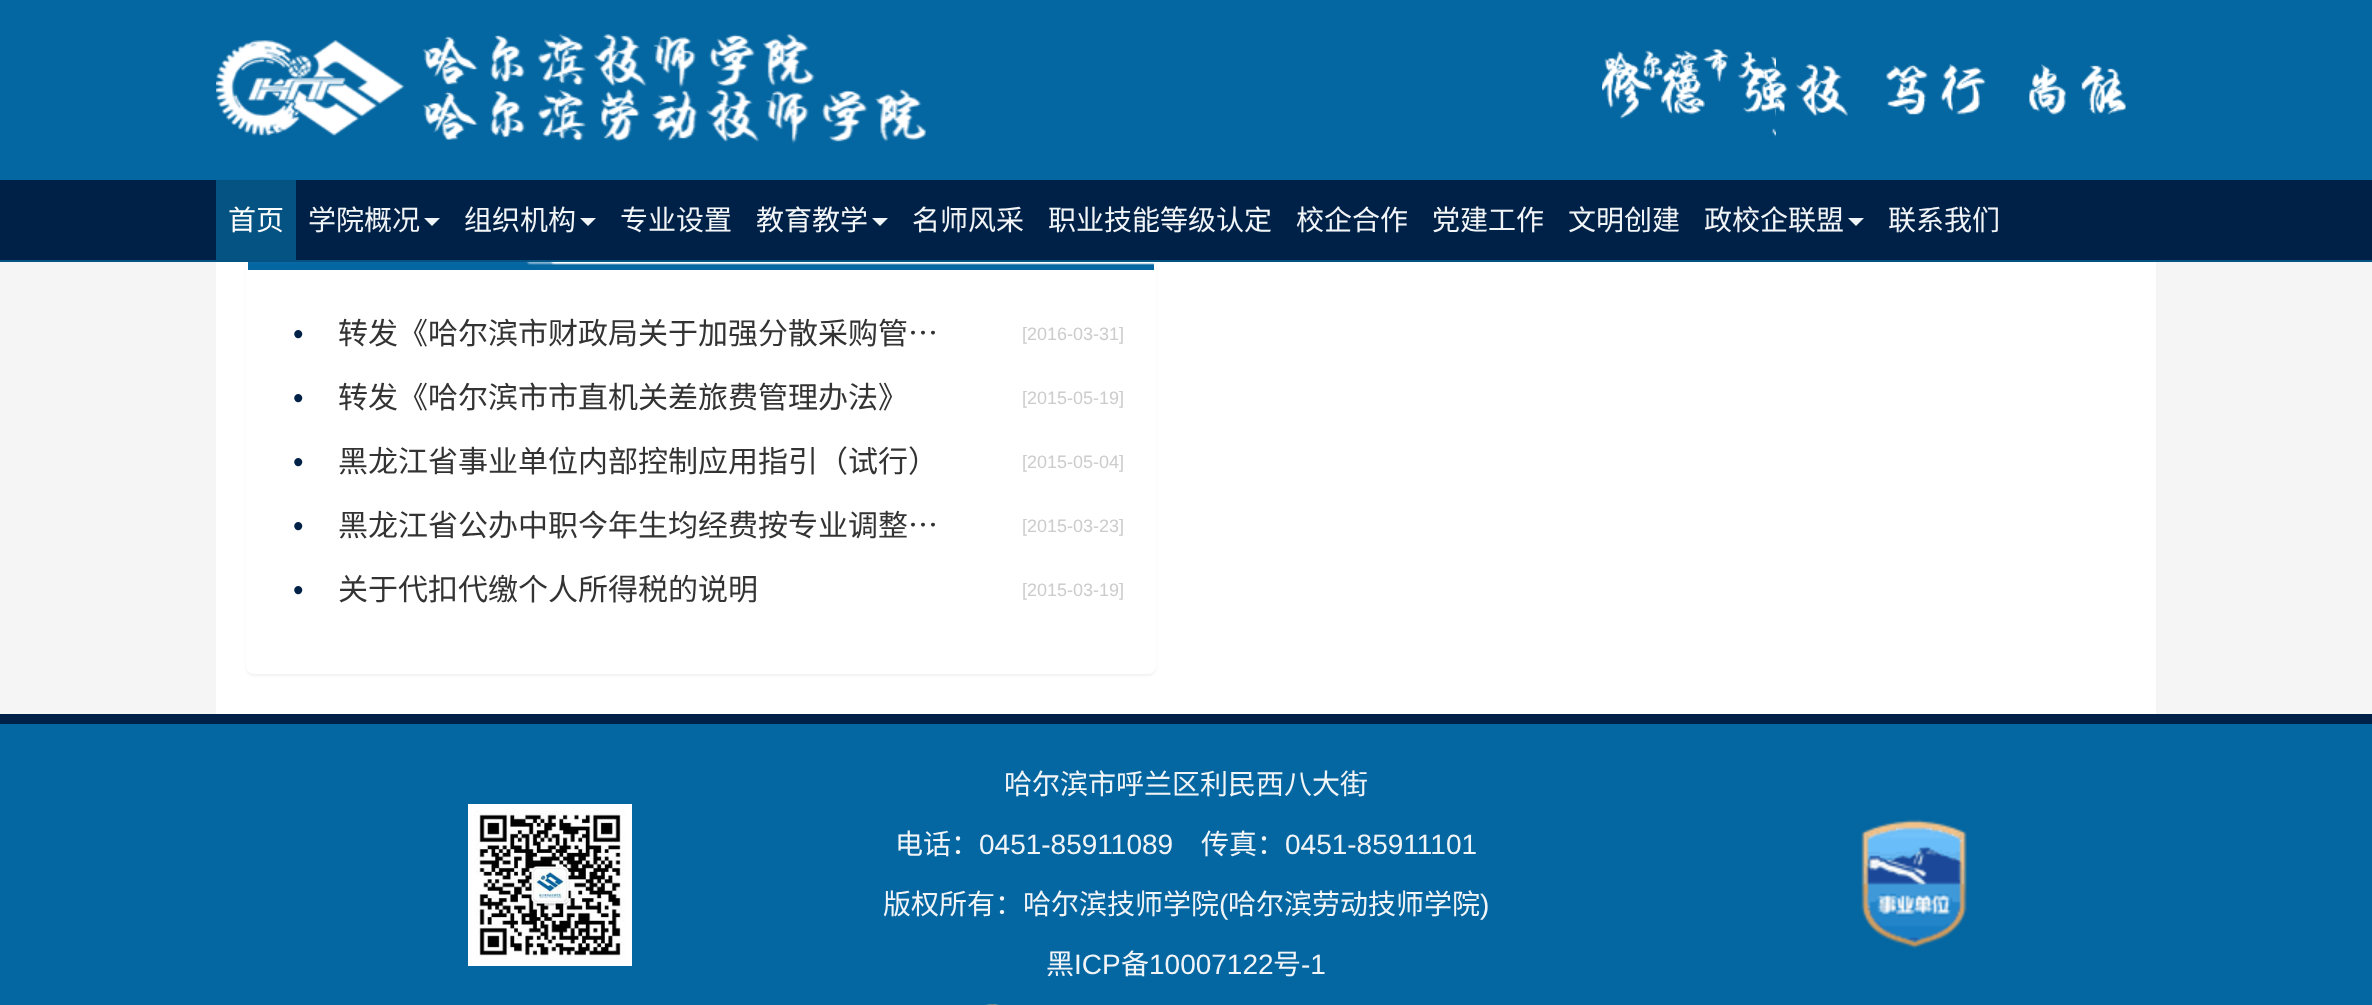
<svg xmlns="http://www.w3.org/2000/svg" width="2372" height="1005">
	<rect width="100%" height="100%" fill="#F5F5F5" />
	<rect x="0" y="0" width="2372" height="180" fill="#0567A2" />
	<rect x="216" y="262" width="1940" height="452" fill="#FFFFFF" />
	<rect x="246" y="200" width="910" height="476" rx="8" fill="#000000" fill-opacity="0.05" filter="blur(1px)" />
	<rect x="246" y="198" width="910" height="476" rx="8" fill="#FFFFFF" />
	<rect x="0" y="260" width="2372" height="2" fill="#045382" />
	<image x="216" y="34" width="710" height="110" href="assets/img1.png" />
	<image x="1604" y="48" width="172" height="89" href="assets/img2.png" />
	<image x="1602" y="62" width="524" height="57" href="assets/img3.png" />
	<rect x="0" y="180" width="2372" height="80" fill="#002147" />
	<rect x="216" y="180" width="80" height="80" fill="#045382" />
	<text x="228" y="230" font-family="Noto Sans CJK SC" font-size="28" fill="#FFFFFF">首页</text>
	<text x="308" y="230" font-family="Noto Sans CJK SC" font-size="28" fill="#F2F5F7">学院概况</text>
	<path d="M424 218H440L432 226Z" fill="#F2F5F7" />
	<text x="464" y="230" font-family="Noto Sans CJK SC" font-size="28" fill="#F2F5F7">组织机构</text>
	<path d="M580 218H596L588 226Z" fill="#F2F5F7" />
	<g font-family="Noto Sans CJK SC" font-size="28" fill="#F2F5F7">
		<text x="620" y="230">专业设置</text>
		<text x="756" y="230">教育教学</text>
	</g>
	<path d="M872 218H888L880 226Z" fill="#F2F5F7" />
	<g font-family="Noto Sans CJK SC" font-size="28" fill="#F2F5F7">
		<text x="912" y="230">名师风采</text>
		<text x="1048" y="230">职业技能等级认定</text>
		<text x="1296" y="230">校企合作</text>
		<text x="1432" y="230">党建工作</text>
		<text x="1568" y="230">文明创建</text>
		<text x="1704" y="230">政校企联盟</text>
	</g>
	<path d="M1848 218H1864L1856 226Z" fill="#F2F5F7" />
	<text x="1888" y="230" font-family="Noto Sans CJK SC" font-size="28" fill="#F2F5F7">联系我们</text>
	<image x="248" y="262" width="906" height="8" href="assets/img4.png" />
	<text x="293" y="344" font-family="Liberation Sans" font-size="30" fill="#002147">•</text>
	<text x="338" y="344" font-family="Noto Sans CJK SC" font-size="30" fill="#333333">转发《哈尔滨市财政局关于加强分散采购管…</text>
	<text x="1022" y="340" font-family="Liberation Sans" font-size="18" fill="#CCCCCC">[2016-03-31]</text>
	<text x="293" y="408" font-family="Liberation Sans" font-size="30" fill="#002147">•</text>
	<text x="338" y="408" font-family="Noto Sans CJK SC" font-size="30" fill="#333333">转发《哈尔滨市市直机关差旅费管理办法》</text>
	<text x="1022" y="404" font-family="Liberation Sans" font-size="18" fill="#CCCCCC">[2015-05-19]</text>
	<text x="293" y="472" font-family="Liberation Sans" font-size="30" fill="#002147">•</text>
	<text x="338" y="472" font-family="Noto Sans CJK SC" font-size="30" fill="#333333">黑龙江省事业单位内部控制应用指引（试行）</text>
	<text x="1022" y="468" font-family="Liberation Sans" font-size="18" fill="#CCCCCC">[2015-05-04]</text>
	<text x="293" y="536" font-family="Liberation Sans" font-size="30" fill="#002147">•</text>
	<text x="338" y="536" font-family="Noto Sans CJK SC" font-size="30" fill="#333333">黑龙江省公办中职今年生均经费按专业调整…</text>
	<text x="1022" y="532" font-family="Liberation Sans" font-size="18" fill="#CCCCCC">[2015-03-23]</text>
	<text x="293" y="600" font-family="Liberation Sans" font-size="30" fill="#002147">•</text>
	<text x="338" y="600" font-family="Noto Sans CJK SC" font-size="30" fill="#333333">关于代扣代缴个人所得税的说明</text>
	<text x="1022" y="596" font-family="Liberation Sans" font-size="18" fill="#CCCCCC">[2015-03-19]</text>
	<rect x="0" y="724" width="2372" height="281" fill="#0567A2" />
	<rect x="0" y="714" width="2372" height="10" fill="#002147" />
	<image x="468" y="804" width="164" height="162" href="assets/img5.png" />
	<g font-family="Noto Sans CJK SC" font-size="28" fill="#F2F5F7">
		<text x="1004" y="794">哈尔滨市呼兰区利民西八大街</text>
		<text x="895" y="854">电话：</text>
	</g>
	<text x="979" y="854" font-family="Liberation Sans" font-size="28" fill="#F2F5F7">0451-85911089</text>
	<text x="1201" y="854" font-family="Noto Sans CJK SC" font-size="28" fill="#F2F5F7">传真：</text>
	<text x="1285" y="854" font-family="Liberation Sans" font-size="28" fill="#F2F5F7">0451-85911101</text>
	<text x="883" y="914" font-family="Noto Sans CJK SC" font-size="28" fill="#F2F5F7">版权所有：哈尔滨技师学院</text>
	<text x="1219" y="914" font-family="Liberation Sans" font-size="28" fill="#F2F5F7">(</text>
	<text x="1228" y="914" font-family="Noto Sans CJK SC" font-size="28" fill="#F2F5F7">哈尔滨劳动技师学院</text>
	<text x="1480" y="914" font-family="Liberation Sans" font-size="28" fill="#F2F5F7">)</text>
	<text x="1046" y="974" font-family="Noto Sans CJK SC" font-size="28" fill="#F2F5F7">黑</text>
	<text x="1074" y="974" font-family="Liberation Sans" font-size="28" fill="#F2F5F7">ICP</text>
	<text x="1121" y="974" font-family="Noto Sans CJK SC" font-size="28" fill="#F2F5F7">备</text>
	<text x="1149" y="974" font-family="Liberation Sans" font-size="28" fill="#F2F5F7">10007122</text>
	<text x="1273" y="974" font-family="Noto Sans CJK SC" font-size="28" fill="#F2F5F7">号</text>
	<text x="1301" y="974" font-family="Liberation Sans" font-size="28" fill="#F2F5F7">-1</text>
	<image x="985" y="1004" width="14" height="1" href="assets/img6.png" />
	<image x="1861" y="819" width="106" height="130" href="assets/img7.png" />
</svg>
